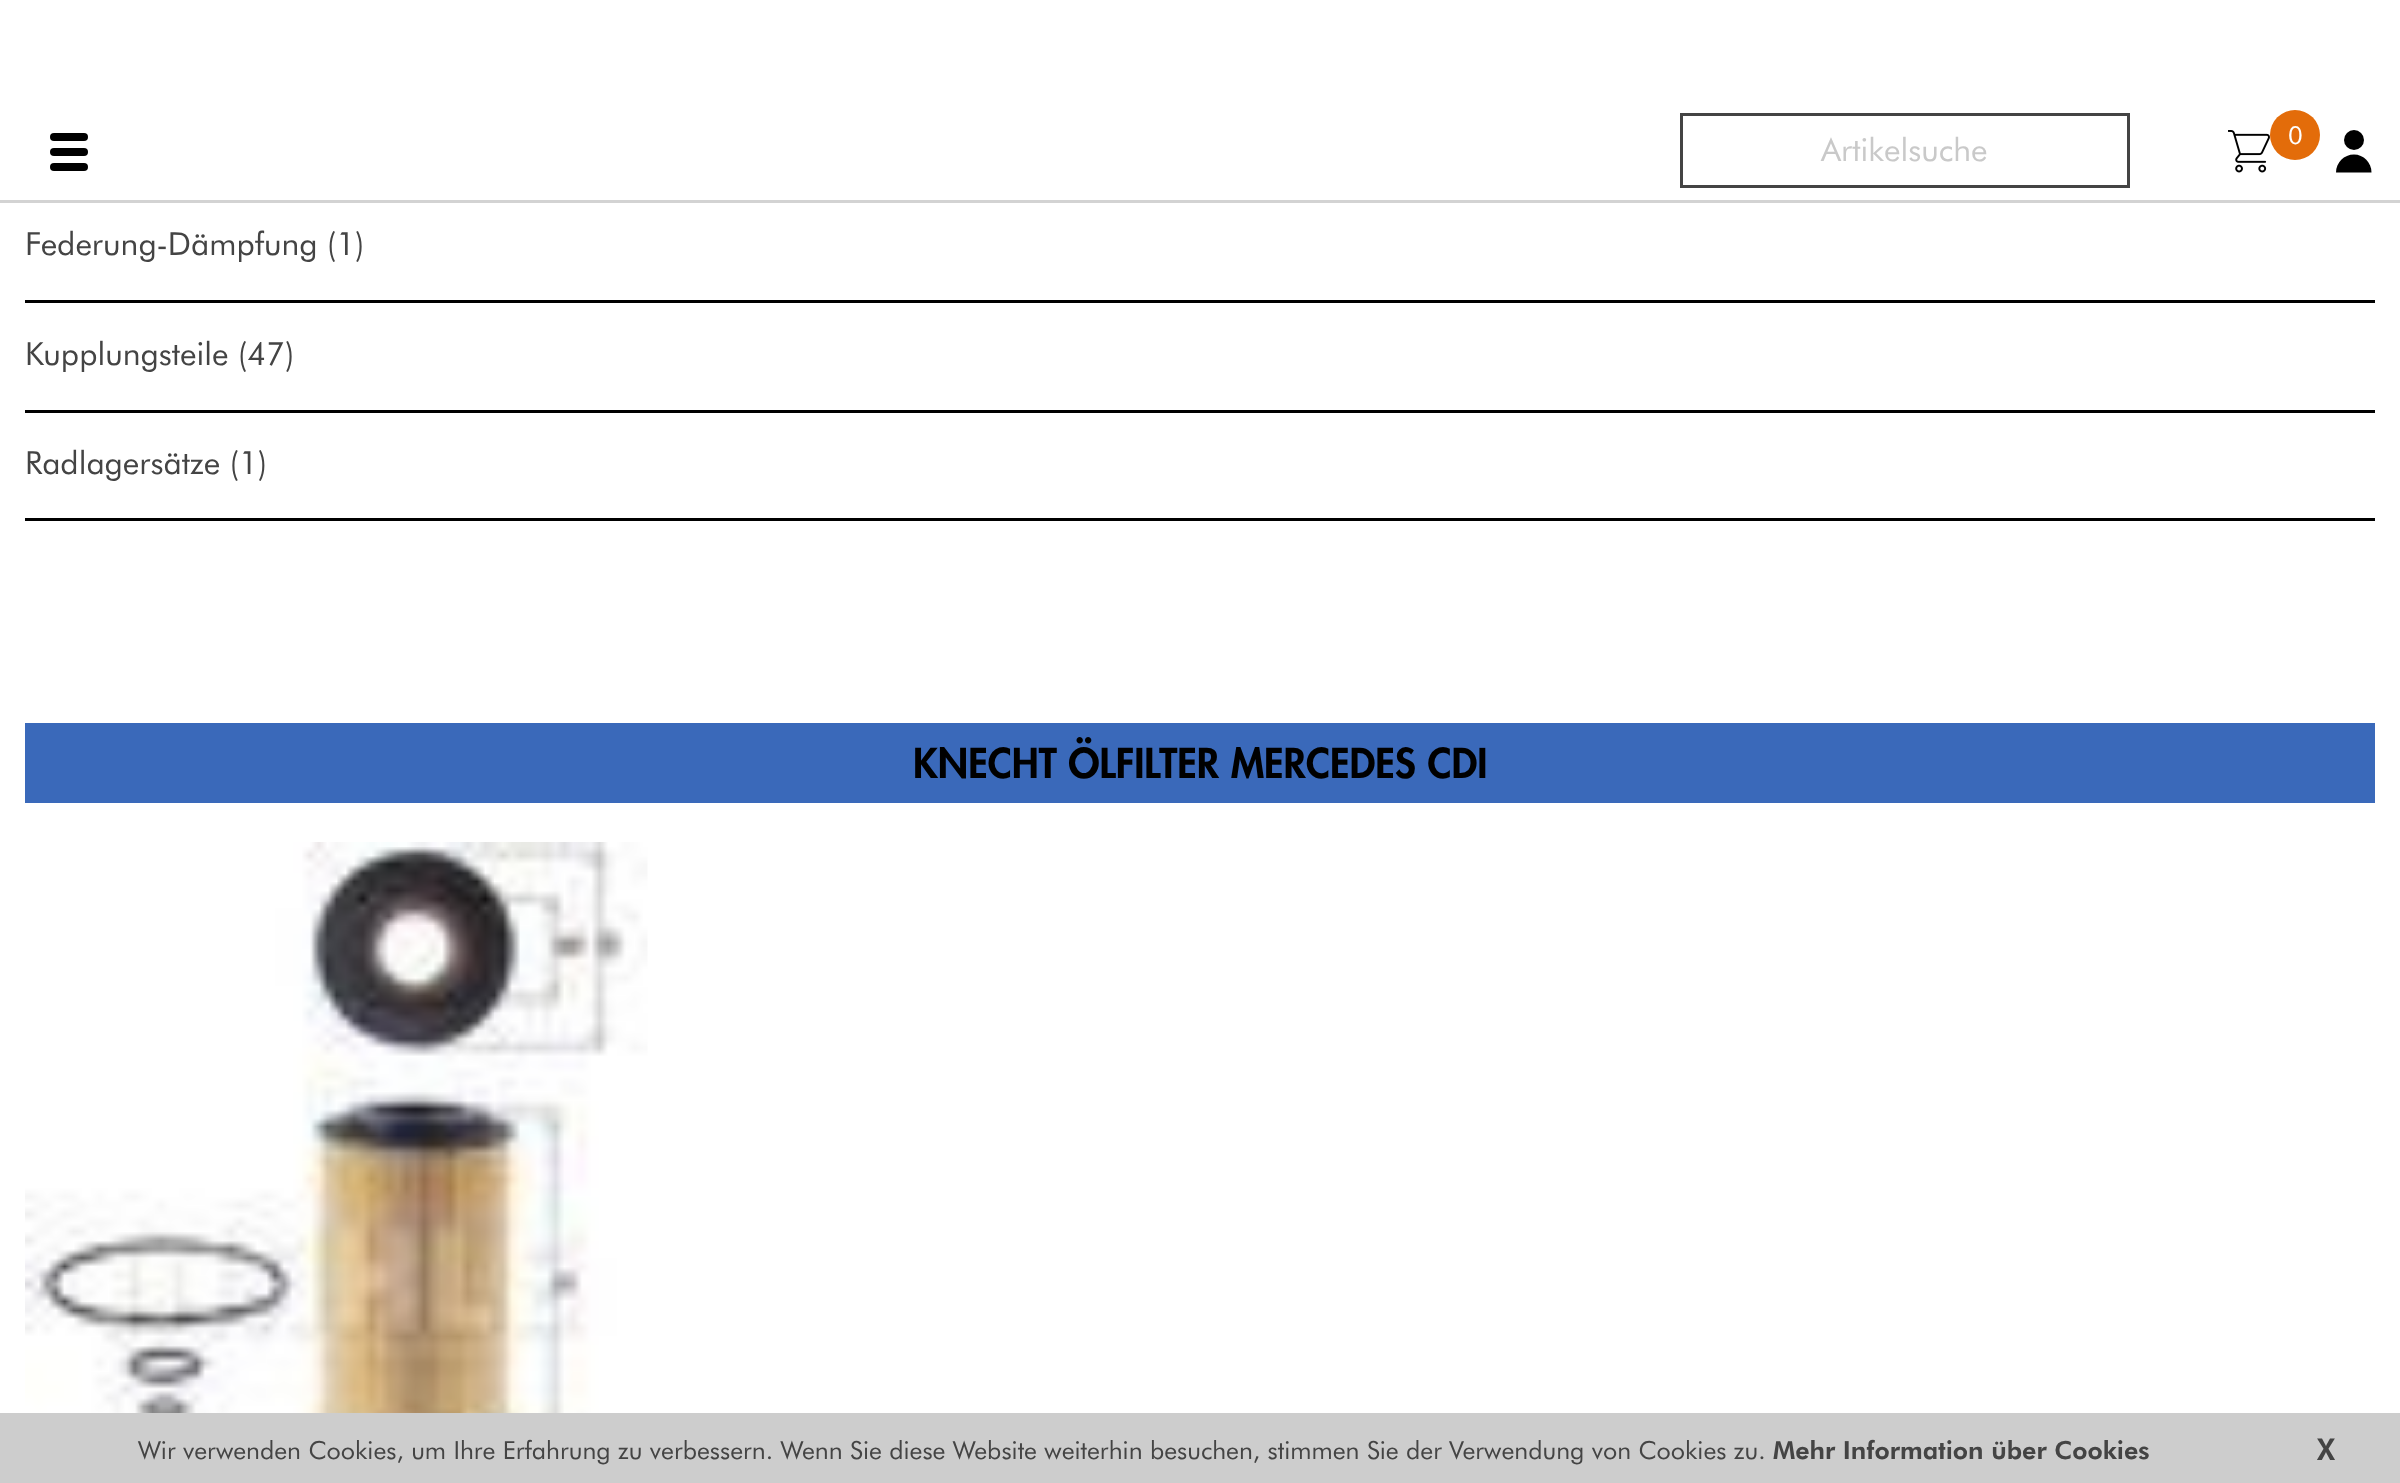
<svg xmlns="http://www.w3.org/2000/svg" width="2400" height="1483">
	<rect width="100%" height="100%" fill="#FFFFFF" />
	<rect x="1681.5" y="114.5" width="447" height="72" fill="none" stroke="#444444" stroke-width="3" />
	<text x="1821" y="161" font-family="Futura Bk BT" font-size="32" fill="#C9C9C9">Artikelsuche</text>
	<image x="2228" y="130" width="42" height="43" href="assets/img1.png" />
	<circle cx="2295" cy="135" r="25" fill="#E36C0A" />
	<text x="2288" y="144" font-family="Futura Bk BT" font-size="25" fill="#FFFFFF">0</text>
	<circle cx="2354" cy="140" r="10" fill="#000000" />
	<path d="M2354 154.5C2344 154.5 2336 162.5 2336 172.5H2371.5C2371.5 162.5 2363.5 154.5 2354 154.5Z" fill="#000000" />
	<rect x="0" y="200" width="2400" height="3" fill="#D3D3D3" />
	<rect x="50" y="133" width="38" height="8" rx="4" fill="#000000" />
	<rect x="50" y="148" width="38" height="8" rx="4" fill="#000000" />
	<rect x="50" y="163" width="38" height="8" rx="4" fill="#000000" />
	<rect x="25" y="300" width="2350" height="3" fill="#000000" />
	<text x="25" y="255" font-family="Futura Bk BT" font-size="32" fill="#444444">Federung-Dämpfung (1)</text>
	<rect x="25" y="410" width="2350" height="3" fill="#000000" />
	<text x="25" y="365" font-family="Futura Bk BT" font-size="32" fill="#444444">Kupplungsteile (47)</text>
	<rect x="25" y="518" width="2350" height="3" fill="#000000" />
	<text x="25" y="474" font-family="Futura Bk BT" font-size="32" fill="#444444">Radlagersätze (1)</text>
	<rect x="25" y="723" width="2350" height="80" fill="#3A69BA" />
	<text x="913" y="778" font-family="Futura" font-size="40" font-weight="900" fill="#000000">KNECHT ÖLFILTER MERCEDES CDI</text>
	<image x="25" y="842" width="623" height="571" href="assets/img2.png" />
	<rect x="0" y="1413" width="2400" height="70" fill="#CDCDCD" />
	<text x="138" y="1459" font-family="Futura Bk BT" font-size="25" fill="#444444">Wir verwenden Cookies, um Ihre Erfahrung zu verbessern. Wenn Sie diese Website weiterhin besuchen, stimmen Sie der Verwendung von Cookies zu.</text>
	<text x="1773" y="1459" font-family="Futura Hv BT" font-size="25" font-weight="900" fill="#444444">Mehr Information über Cookies</text>
	<text x="2317" y="1460" font-family="Futura Hv BT" font-size="30" font-weight="900" fill="#444444">X</text>
</svg>
